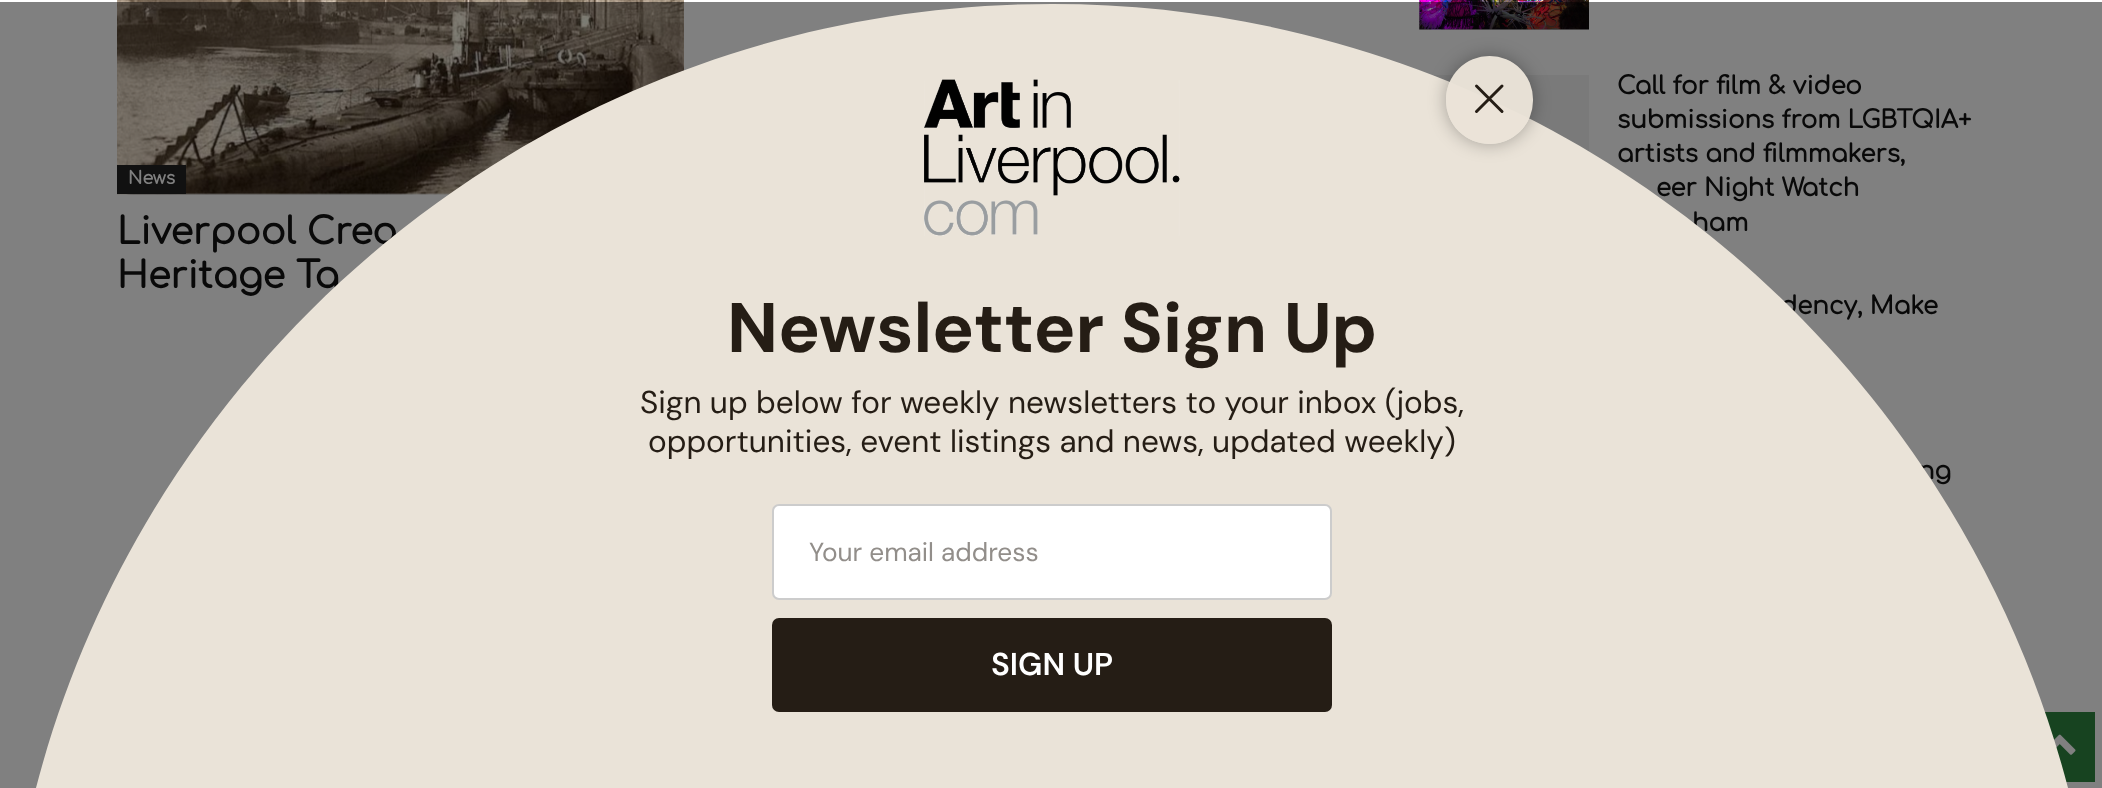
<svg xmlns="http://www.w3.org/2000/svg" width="2102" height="788">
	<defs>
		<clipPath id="clip1"><path d="M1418 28H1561V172H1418ZM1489.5 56C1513.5 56 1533 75.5 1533 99.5V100.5C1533 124.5 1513.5 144 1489.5 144C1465.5 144 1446 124.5 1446 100.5V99.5C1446 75.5 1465.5 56 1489.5 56Z" clip-rule="evenodd" /></clipPath>
	</defs>
	<rect width="100%" height="100%" fill="#FFFFFF" />
	<rect x="0" y="2" width="2102" height="786" fill="#808080" />
	<image x="117" y="0" width="567" height="195" href="assets/img1.png" />
	<rect x="117" y="165" width="69" height="29" fill="#111111" />
	<text x="128" y="184" font-family="Comfortaa" font-size="17.5" font-weight="700" fill="#808080">News</text>
	<g font-family="Comfortaa" font-size="36.75" font-weight="700" fill="#090909">
		<text x="117" y="244">Liverpool Crea</text>
		<text x="117" y="288">Heritage Ta</text>
	</g>
	<image x="1419" y="0" width="170" height="30" href="assets/img2.png" />
	<image x="1432" y="75" width="157" height="77" href="assets/img3.png" />
	<g font-family="Comfortaa" font-size="24.5" font-weight="700" fill="#090909">
		<text x="1617" y="94">Call for film &amp; video</text>
		<text x="1617" y="128">submissions from LGBTQIA+</text>
		<text x="1617" y="162">artists and filmmakers,</text>
		<text x="1656" y="196">eer Night Watch</text>
		<text x="1692" y="231">ham</text>
		<text x="1780" y="314">dency, Make</text>
		<text x="1918" y="479">ng</text>
	</g>
	<rect x="2045" y="712" width="50" height="70" fill="#174320" />
	<image x="2054" y="734" width="22" height="21" href="assets/img5.png" />
	<path d="M1052 4C1632 4 2102 474 2102 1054V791H2V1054C2 474 472 4 1052 4Z" fill="#EAE3D8" />
	<g clip-path="url(#clip1)">
		<rect x="1446" y="56" width="87" height="88" rx="43.5" fill="#000000" fill-opacity="0.3" filter="blur(9px)" />
	</g>
	<rect x="1446" y="56" width="87" height="88" rx="43.5" fill="#EAE3D8" fill-opacity="0.97" />
	<path d="M1476.5 86L1502 111.5M1502 86L1476.5 111.5" fill="none" stroke="#251D15" stroke-width="3" stroke-linecap="round" />
	<image x="924" y="79" width="256" height="157" href="assets/img4.png" />
	<text x="727" y="352" font-family="DM Sans" font-size="70" font-weight="700" fill="#251D15">Newsletter Sign Up</text>
	<g font-family="DM Sans" font-size="31.5" fill="#251D15">
		<text x="640" y="413">Sign up below for weekly newsletters to your inbox (jobs,</text>
		<text x="648" y="452">opportunities, event listings and news, updated weekly)</text>
	</g>
	<rect x="773" y="505" width="558" height="94" rx="6" fill="#FFFFFF" stroke="#CCCCCC" stroke-width="2" />
	<text x="809" y="561" font-family="DM Sans" font-size="26.25" fill="#928E8A">Your email address</text>
	<rect x="772" y="618" width="560" height="94" rx="7" fill="#251D15" />
	<text x="991" y="675" font-family="DM Sans" font-size="31.5" font-weight="600" fill="#FFFFFF">SIGN UP</text>
</svg>
